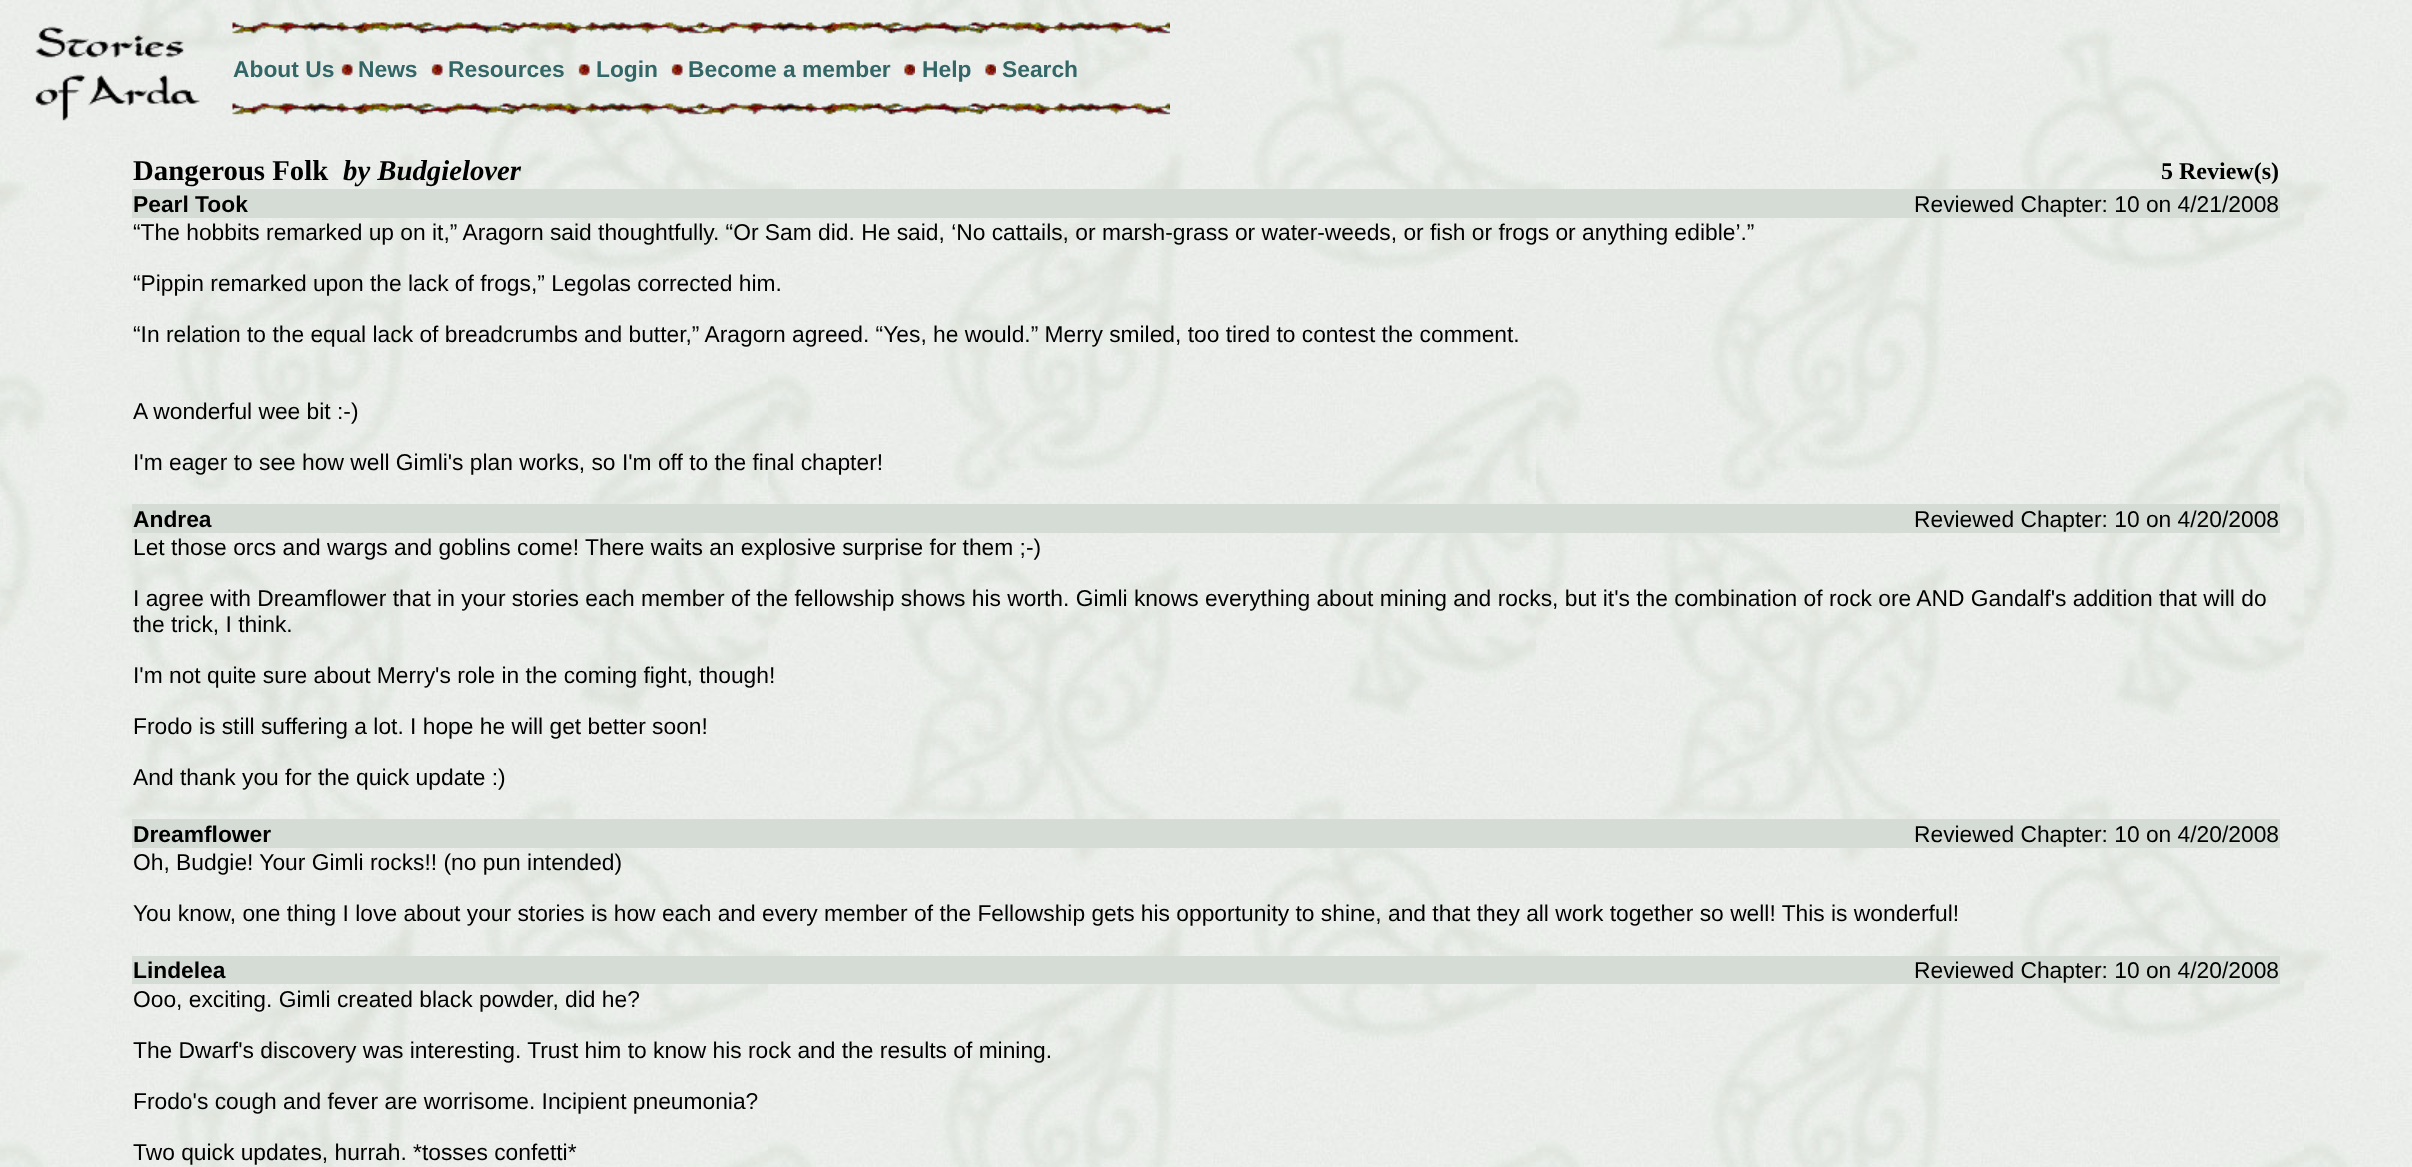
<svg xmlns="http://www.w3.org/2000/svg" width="2412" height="1167">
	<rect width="100%" height="100%" fill="#FFFFFF" />
	<image x="0" y="0" width="2412" height="1167" href="assets/img1.png" />
	<image x="35" y="26" width="165" height="95" href="assets/img2.png" />
	<image x="232" y="22" width="938" height="12" href="assets/img3.png" />
	<text x="233" y="77" font-family="Liberation Sans" font-size="22.8" font-weight="700" fill="#336666">About Us</text>
	<image x="341" y="64" width="12" height="12" href="assets/img4.png" />
	<text x="358" y="77" font-family="Liberation Sans" font-size="22.8" font-weight="700" fill="#336666">News</text>
	<image x="431" y="64" width="12" height="12" href="assets/img5.png" />
	<text x="448" y="77" font-family="Liberation Sans" font-size="22.8" font-weight="700" fill="#336666">Resources</text>
	<image x="578" y="64" width="12" height="12" href="assets/img6.png" />
	<text x="596" y="77" font-family="Liberation Sans" font-size="22.8" font-weight="700" fill="#336666">Login</text>
	<image x="671" y="64" width="12" height="12" href="assets/img7.png" />
	<text x="688" y="77" font-family="Liberation Sans" font-size="22.8" font-weight="700" fill="#336666">Become a member</text>
	<image x="904" y="64" width="11" height="12" href="assets/img8.png" />
	<text x="922" y="77" font-family="Liberation Sans" font-size="22.8" font-weight="700" fill="#336666">Help</text>
	<image x="985" y="64" width="11" height="12" href="assets/img9.png" />
	<text x="1002" y="77" font-family="Liberation Sans" font-size="22.8" font-weight="700" fill="#336666">Search</text>
	<image x="232" y="103" width="938" height="12" href="assets/img10.png" />
	<text x="133" y="180" font-family="Liberation Serif" font-size="28.75" font-weight="700" fill="#000000">Dangerous Folk</text>
	<text x="343" y="180" font-family="Liberation Serif" font-size="28.75" font-weight="700" font-style="italic" fill="#000000">by Budgielover</text>
	<text x="2161" y="179" font-family="Liberation Serif" font-size="24" font-weight="700" fill="#000000">5 Review(s)</text>
	<rect x="132" y="189" width="2148" height="29" fill="#D5DBD5" />
	<text x="133" y="212" font-family="Liberation Sans" font-size="22.8" font-weight="700" fill="#000000">Pearl Took</text>
	<g font-family="Liberation Sans" font-size="22.8" fill="#000000">
		<text x="1914" y="212">Reviewed Chapter: 10 on 4/21/2008</text>
		<text x="133" y="240">“The hobbits remarked up on it,” Aragorn said thoughtfully. “Or Sam did. He said, ‘No cattails, or marsh-grass or water-weeds, or fish or frogs or anything edible’.”</text>
		<text x="133" y="291">“Pippin remarked upon the lack of frogs,” Legolas corrected him.</text>
		<text x="133" y="342">“In relation to the equal lack of breadcrumbs and butter,” Aragorn agreed. “Yes, he would.” Merry smiled, too tired to contest the comment.</text>
		<text x="133" y="419">A wonderful wee bit :-)</text>
		<text x="133" y="470">I'm eager to see how well Gimli's plan works, so I'm off to the final chapter!</text>
	</g>
	<rect x="132" y="504" width="2148" height="29" fill="#D5DBD5" />
	<text x="133" y="527" font-family="Liberation Sans" font-size="22.8" font-weight="700" fill="#000000">Andrea</text>
	<g font-family="Liberation Sans" font-size="22.8" fill="#000000">
		<text x="1914" y="527">Reviewed Chapter: 10 on 4/20/2008</text>
		<text x="133" y="555">Let those orcs and wargs and goblins come! There waits an explosive surprise for them ;-)</text>
		<text x="133" y="606">I agree with Dreamflower that in your stories each member of the fellowship shows his worth. Gimli knows everything about mining and rocks, but it's the combination of rock ore AND Gandalf's addition that will do</text>
		<text x="133" y="632">the trick, I think.</text>
		<text x="133" y="683">I'm not quite sure about Merry's role in the coming fight, though!</text>
		<text x="133" y="734">Frodo is still suffering a lot. I hope he will get better soon!</text>
		<text x="133" y="785">And thank you for the quick update :)</text>
	</g>
	<rect x="132" y="819" width="2148" height="29" fill="#D5DBD5" />
	<text x="133" y="842" font-family="Liberation Sans" font-size="22.8" font-weight="700" fill="#000000">Dreamflower</text>
	<g font-family="Liberation Sans" font-size="22.8" fill="#000000">
		<text x="1914" y="842">Reviewed Chapter: 10 on 4/20/2008</text>
		<text x="133" y="870">Oh, Budgie! Your Gimli rocks!! (no pun intended)</text>
		<text x="133" y="921">You know, one thing I love about your stories is how each and every member of the Fellowship gets his opportunity to shine, and that they all work together so well! This is wonderful!</text>
	</g>
	<rect x="132" y="956" width="2148" height="28" fill="#D5DBD5" />
	<text x="133" y="978" font-family="Liberation Sans" font-size="22.8" font-weight="700" fill="#000000">Lindelea</text>
	<g font-family="Liberation Sans" font-size="22.8" fill="#000000">
		<text x="1914" y="978">Reviewed Chapter: 10 on 4/20/2008</text>
		<text x="133" y="1007">Ooo, exciting. Gimli created black powder, did he?</text>
		<text x="133" y="1058">The Dwarf's discovery was interesting. Trust him to know his rock and the results of mining.</text>
		<text x="133" y="1109">Frodo's cough and fever are worrisome. Incipient pneumonia?</text>
		<text x="133" y="1160">Two quick updates, hurrah. *tosses confetti*</text>
	</g>
</svg>
